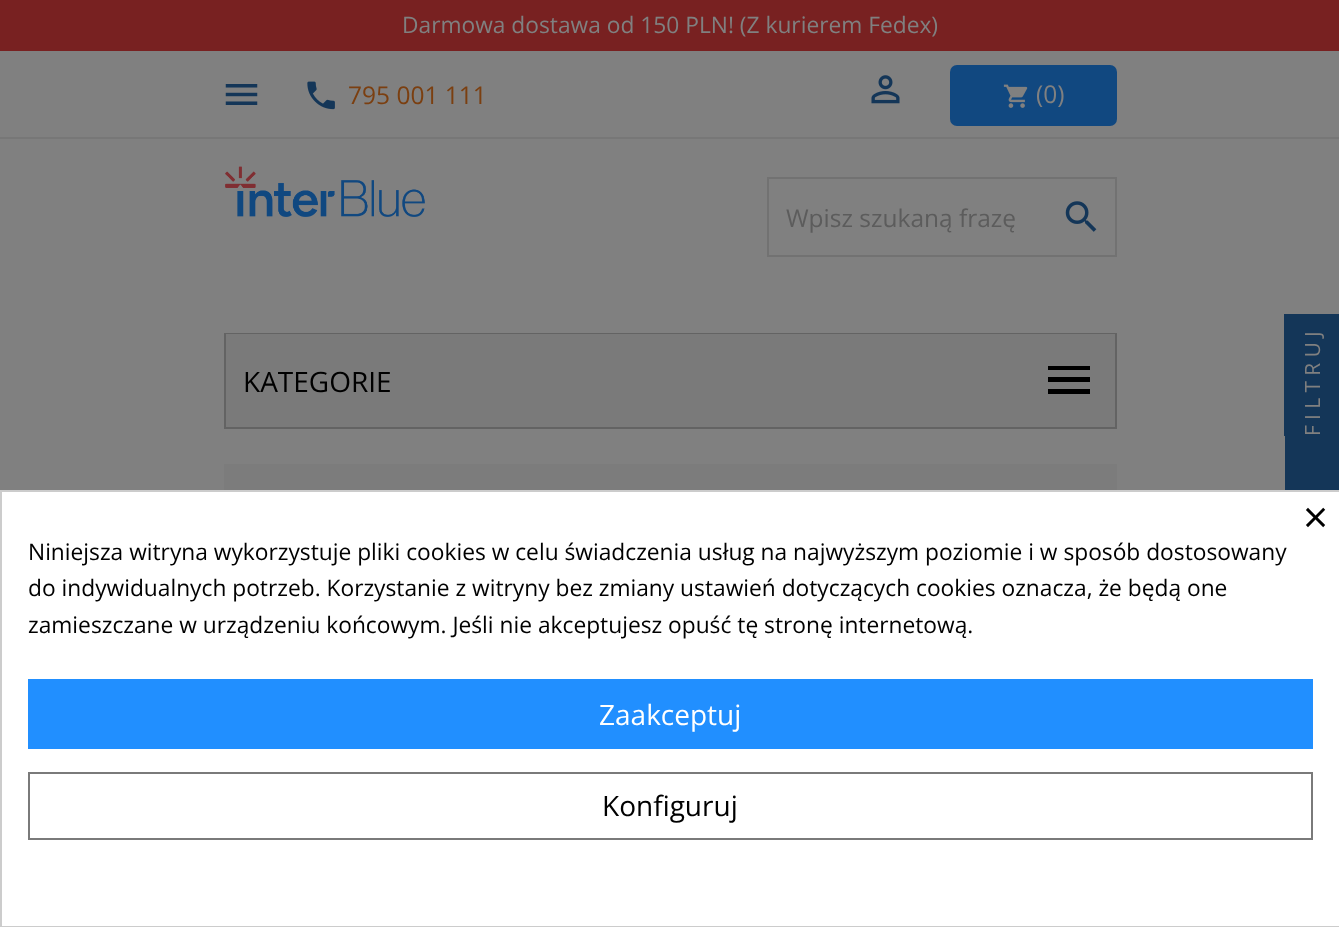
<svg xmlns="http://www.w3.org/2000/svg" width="1339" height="927">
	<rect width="100%" height="100%" fill="#808080" />
	<rect x="0" y="0" width="1339" height="51" fill="#782121" />
	<text x="402" y="33" font-family="Open Sans" font-size="22.75" fill="#808080">Darmowa dostawa od 150 PLN! (Z kurierem Fedex)</text>
	<rect x="0" y="137" width="1339" height="2" fill="#777777" />
	<image x="225" y="84" width="33" height="21" href="assets/img1.png" />
	<image x="307" y="81" width="28" height="29" href="assets/img2.png" />
	<text x="348" y="104" font-family="Open Sans" font-size="24.5" fill="#7B3F10">795 001 111</text>
	<image x="871" y="75" width="29" height="29" href="assets/img3.png" />
	<rect x="950" y="65" width="167" height="61" rx="7" fill="#114880" />
	<image x="1003" y="84" width="25" height="24" href="assets/img4.png" />
	<text x="1036" y="103" font-family="Open Sans" font-size="24.5" fill="#808080">(0)</text>
	<image x="225" y="166" width="200" height="51" href="assets/img5.png" />
	<rect x="768" y="178" width="348" height="78" fill="none" stroke="#727272" stroke-width="2" />
	<text x="786" y="227" font-family="Open Sans" font-size="24.5" fill="#5C5C5C">Wpisz szukaną frazę</text>
	<image x="1065" y="201" width="32" height="31" href="assets/img6.png" />
	<rect x="225" y="334" width="891" height="94" fill="none" stroke="#636363" stroke-width="2" />
	<rect x="226" y="334" width="889" height="93" fill="#7A7A7A" />
	<text x="243" y="392" font-family="Open Sans" font-size="28" fill="#000000">KATEGORIE</text>
	<path d="M1048 366H1090V370H1048ZM1048 382V377H1090V382ZM1048 394V389H1090V394Z" fill="#000000" />
	<rect x="224" y="464" width="893" height="26" fill="#7C7C7C" />
	<rect x="1285" y="436" width="54" height="54" fill="#143658" />
	<rect x="1284" y="314" width="55" height="122" fill="#143658" />
	<text x="1320" y="436" transform="rotate(-90 1320 436)" font-family="Open Sans" font-size="21" letter-spacing="5.25" fill="#808080">FILTRUJ</text>
	<rect x="1" y="491" width="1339" height="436" fill="#FFFFFF" stroke="#CCCCCC" stroke-width="2" />
	<text x="1303" y="533" font-family="Open Sans" font-size="44" fill="#000000">×</text>
	<g font-family="Open Sans" font-size="22.75" fill="#000000">
		<text x="28" y="560">Niniejsza witryna wykorzystuje pliki cookies w celu świadczenia usług na najwyższym poziomie i w sposób dostosowany</text>
		<text x="28" y="596">do indywidualnych potrzeb. Korzystanie z witryny bez zmiany ustawień dotyczących cookies oznacza, że będą one</text>
		<text x="28" y="633">zamieszczane w urządzeniu końcowym. Jeśli nie akceptujesz opuść tę stronę internetową.</text>
	</g>
	<rect x="28" y="679" width="1285" height="70" fill="#218FFF" />
	<text x="599" y="725" font-family="Open Sans" font-size="28" fill="#FFFFFF">Zaakceptuj</text>
	<rect x="29" y="773" width="1283" height="66" fill="none" stroke="#7A7A7A" stroke-width="2" />
	<text x="602" y="816" font-family="Open Sans" font-size="28" fill="#000000">Konfiguruj</text>
</svg>
